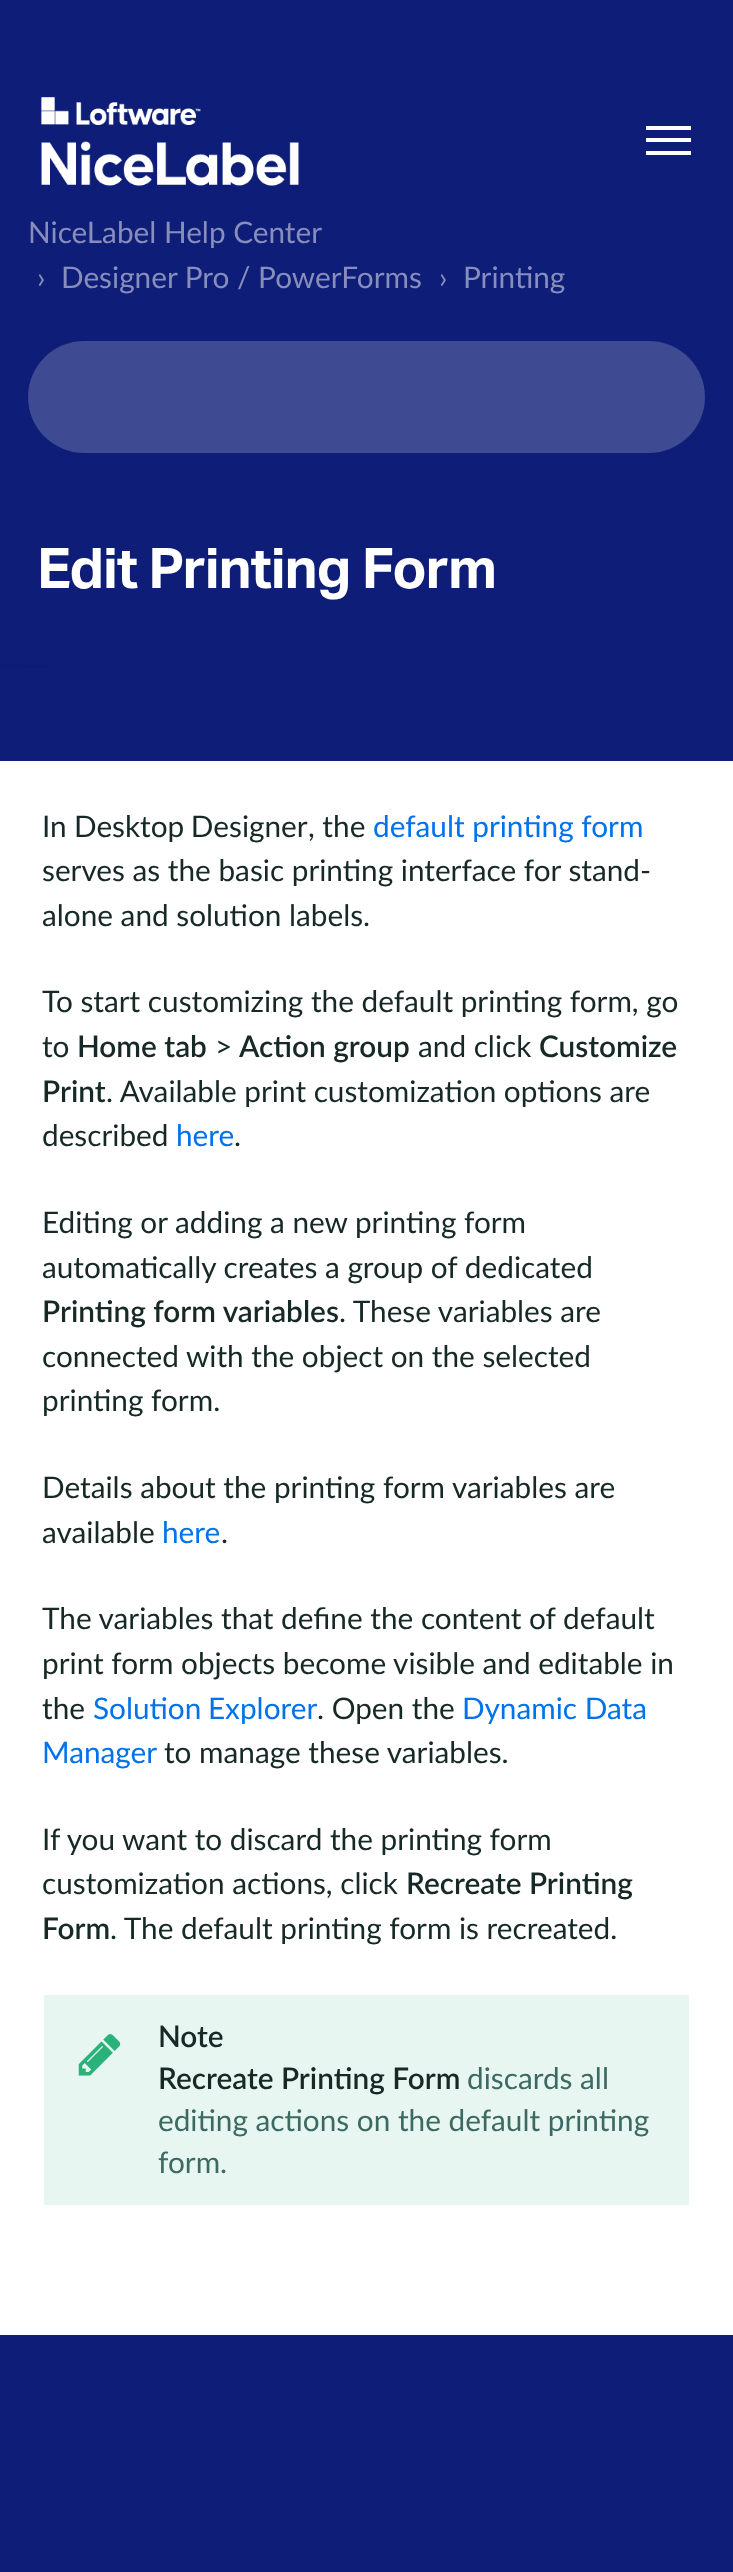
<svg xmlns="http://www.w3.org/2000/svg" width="733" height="2572">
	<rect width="100%" height="100%" fill="#FFFFFF" />
	<rect x="0" y="0" width="733" height="667" fill="#0E1D77" />
	<image x="41" y="97" width="258" height="89" href="assets/img1.png" />
	<rect x="646" y="138" width="45" height="4" fill="#FFFFFF" />
	<rect x="646" y="126" width="45" height="4" fill="#FFFFFF" />
	<rect x="646" y="151" width="45" height="4" fill="#FFFFFF" />
	<g font-family="Lato" font-size="29.75" fill="#878EBB">
		<text x="28" y="243">NiceLabel Help Center</text>
		<text x="37" y="288">›</text>
		<text x="61" y="288">Designer Pro / PowerForms</text>
		<text x="439" y="288">›</text>
		<text x="463" y="288">Printing</text>
	</g>
	<rect x="28" y="341" width="677" height="112" rx="56" fill="#3E4A92" />
	<text x="37" y="588" font-family="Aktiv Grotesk" font-size="56" font-weight="700" letter-spacing="-1.1" fill="#FFFFFF">Edit Printing Form</text>
	<path d="M0 665H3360V812Z" fill="#0E1D77" fill-opacity="0.05" />
	<path d="M0 665H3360V654L0 728Z" fill="#0E1D77" fill-opacity="0.1" />
	<rect x="0" y="667" width="733" height="94" fill="#0E1D77" />
	<g font-family="Lato" font-size="29.75" fill="#172926">
		<text x="42" y="837">In</text>
		<text x="74" y="837" word-spacing="-1">Desktop Designer</text>
		<text x="308" y="837">, the</text>
	</g>
	<text x="373" y="837" font-family="Lato" font-size="29.75" fill="#0072EB">default printing form</text>
	<g font-family="Lato" font-size="29.75" fill="#172926">
		<text x="42" y="881">serves as the basic printing interface for stand-</text>
		<text x="42" y="926">alone and solution labels.</text>
		<text x="42" y="1012">To start customizing the default printing form, go</text>
		<text x="42" y="1057">to</text>
	</g>
	<text x="77" y="1057" font-family="Lato" font-size="29.75" font-weight="600" fill="#172926">Home tab</text>
	<text x="215" y="1057" font-family="Lato" font-size="29.75" fill="#172926">&gt;</text>
	<text x="239" y="1057" font-family="Lato" font-size="29.75" font-weight="600" fill="#172926">Action group</text>
	<text x="418" y="1057" font-family="Lato" font-size="29.75" fill="#172926">and click</text>
	<g font-family="Lato" font-size="29.75" font-weight="600" fill="#172926">
		<text x="539" y="1057">Customize</text>
		<text x="42" y="1102">Print</text>
	</g>
	<g font-family="Lato" font-size="29.75" fill="#172926">
		<text x="106" y="1102">. Available print customization options are</text>
		<text x="42" y="1146">described</text>
	</g>
	<text x="176" y="1146" font-family="Lato" font-size="29.75" fill="#0072EB">here</text>
	<g font-family="Lato" font-size="29.75" fill="#172926">
		<text x="234" y="1146">.</text>
		<text x="42" y="1233">Editing or adding a new printing form</text>
		<text x="42" y="1278">automatically creates a group of dedicated</text>
	</g>
	<text x="42" y="1322" font-family="Lato" font-size="29.75" font-weight="600" fill="#172926">Printing form variables</text>
	<g font-family="Lato" font-size="29.75" fill="#172926">
		<text x="339" y="1322">. These variables are</text>
		<text x="42" y="1367">connected with the object on the selected</text>
		<text x="42" y="1411">printing form.</text>
		<text x="42" y="1498">Details about the printing form variables are</text>
		<text x="42" y="1543">available</text>
	</g>
	<text x="162" y="1543" font-family="Lato" font-size="29.75" fill="#0072EB">here</text>
	<g font-family="Lato" font-size="29.75" fill="#172926">
		<text x="221" y="1543">.</text>
		<text x="42" y="1629">The variables that define the content of default</text>
		<text x="42" y="1674">print form objects become visible and editable in</text>
		<text x="42" y="1719">the</text>
	</g>
	<text x="93" y="1719" word-spacing="-1" font-family="Lato" font-size="29.75" fill="#0072EB">Solution Explorer</text>
	<text x="317" y="1719" font-family="Lato" font-size="29.75" fill="#172926">. Open the</text>
	<g font-family="Lato" font-size="29.75" fill="#0072EB">
		<text x="462" y="1719">Dynamic Data</text>
		<text x="42" y="1763">Manager</text>
	</g>
	<g font-family="Lato" font-size="29.75" fill="#172926">
		<text x="164" y="1763">to manage these variables.</text>
		<text x="42" y="1850">If you want to discard the printing form</text>
		<text x="42" y="1894">customization actions, click</text>
	</g>
	<g font-family="Lato" font-size="29.75" font-weight="600" fill="#172926">
		<text x="406" y="1894">Recreate Printing</text>
		<text x="42" y="1939">Form</text>
	</g>
	<text x="110" y="1939" font-family="Lato" font-size="29.75" fill="#172926">. The default printing form is recreated.</text>
	<rect x="44" y="1995" width="645" height="210" fill="#E7F6F0" />
	<image x="78" y="2034" width="43" height="42" href="assets/img2.png" />
	<g font-family="Lato" font-size="29.75" font-weight="600" fill="#172926">
		<text x="158" y="2047">Note</text>
		<text x="158" y="2089">Recreate Printing Form</text>
	</g>
	<g font-family="Lato" font-size="29.75" fill="#3C6A63">
		<text x="467" y="2089">discards all</text>
		<text x="158" y="2131">editing actions on the default printing</text>
		<text x="158" y="2173">form.</text>
	</g>
	<rect x="0" y="2335" width="733" height="237" fill="#0E1D77" />
</svg>
